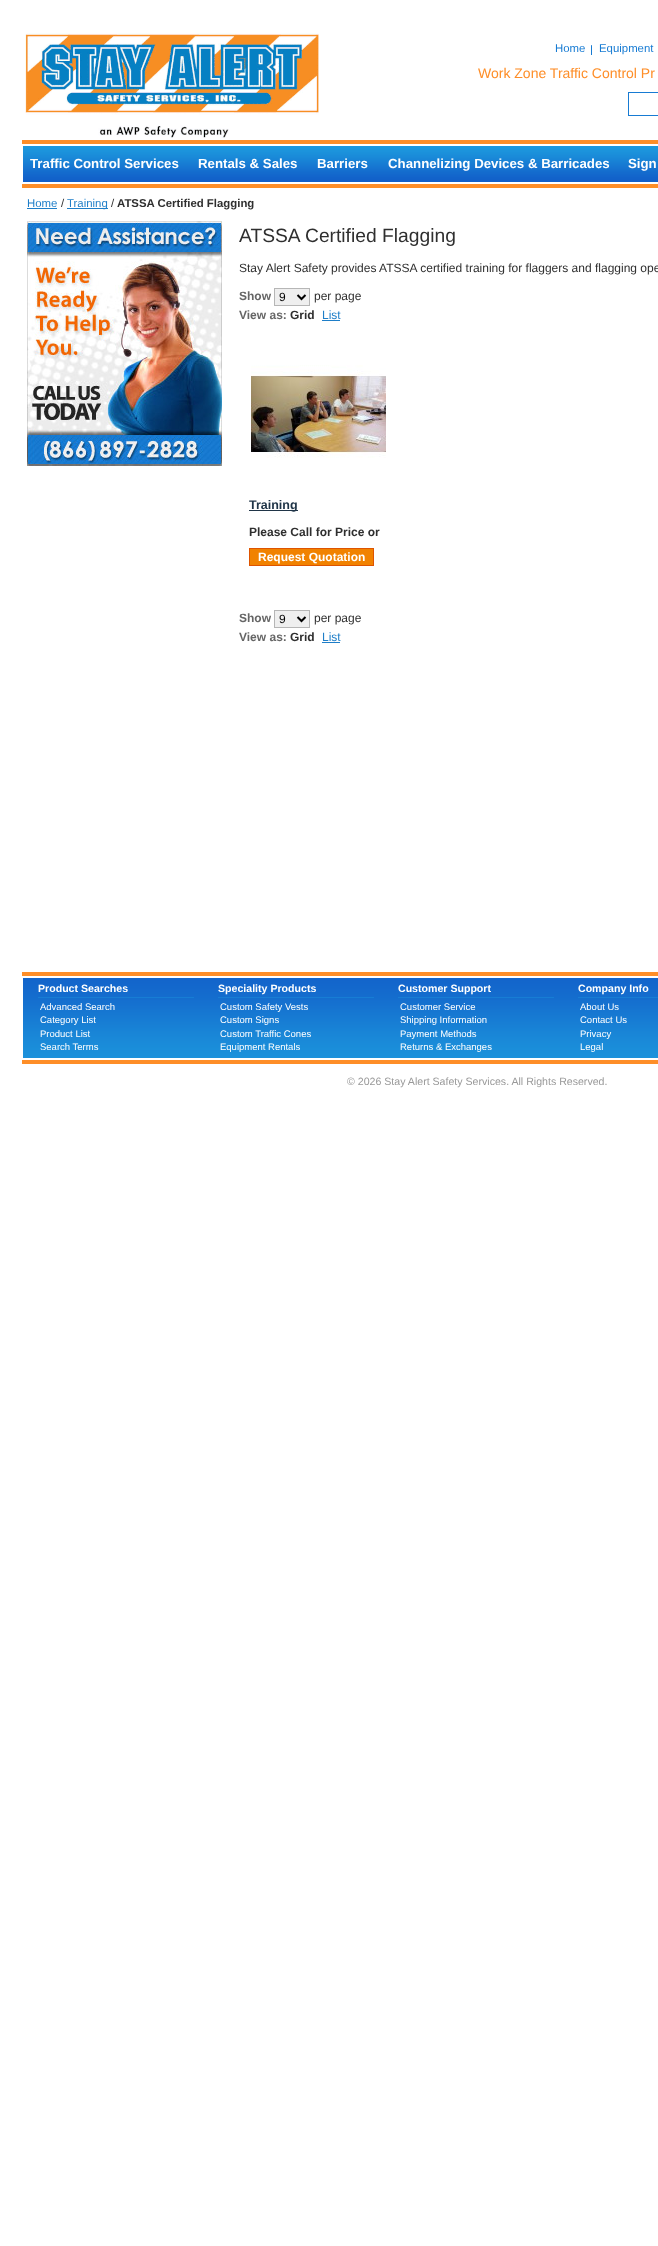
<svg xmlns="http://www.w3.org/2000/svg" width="658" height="2246">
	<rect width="100%" height="100%" fill="#FFFFFF" />
	<image x="25" y="33" width="294" height="105" href="assets/img1.png" />
	<text x="555" y="52" font-family="Liberation Sans" font-size="11.4" fill="#177BD3">Home</text>
	<image x="591" y="45" width="1" height="10" href="assets/img2.png" />
	<text x="599" y="52" font-family="Liberation Sans" font-size="11.4" fill="#177BD3">Equipment</text>
	<text x="478" y="78" font-family="Liberation Sans" font-size="14" fill="#FE8E28">Work Zone Traffic Control Pr</text>
	<rect x="628.5" y="92.5" width="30" height="23" fill="none" stroke="#177BD3" />
	<image x="22" y="140" width="636" height="48" href="assets/img3.png" />
	<g font-family="Liberation Sans" font-size="13.25" font-weight="700" fill="#FFFFFF">
		<text x="30" y="168">Traffic Control Services</text>
		<text x="198" y="168">Rentals &amp; Sales</text>
		<text x="317" y="168">Barriers</text>
		<text x="388" y="168">Channelizing Devices &amp; Barricades</text>
		<text x="628" y="168">Sign</text>
	</g>
	<text x="27" y="207" font-family="Liberation Sans" font-size="11.4" fill="#1E7EC8">Home</text>
	<rect x="27" y="208" width="30" height="1" fill="#1E7EC8" />
	<text x="61" y="207" font-family="Liberation Sans" font-size="11.4" fill="#2F2F2F">/</text>
	<rect x="67" y="208" width="41" height="1" fill="#1E7EC8" />
	<text x="67" y="207" font-family="Liberation Sans" font-size="11.4" fill="#1E7EC8">Training</text>
	<text x="111" y="207" font-family="Liberation Sans" font-size="11.4" fill="#2F2F2F">/</text>
	<text x="117" y="207" font-family="Liberation Sans" font-size="11.4" font-weight="700" fill="#2F2F2F">ATSSA Certified Flagging</text>
	<image x="27" y="221" width="195" height="245" href="assets/img4.png" />
	<text x="239" y="242" font-family="Liberation Sans" font-size="19.25" fill="#2F2F2F">ATSSA Certified Flagging</text>
	<text x="239" y="272" font-family="Liberation Sans" font-size="12" fill="#2F2F2F">Stay Alert Safety provides ATSSA certified training for flaggers and flagging ope</text>
	<text x="239" y="300" font-family="Liberation Sans" font-size="12" font-weight="700" fill="#666666">Show</text>
	<rect x="274.5" y="288.5" width="35" height="17" fill="#EFEFEF" stroke="#B6B6B6" />
	<path d="M297.5 295L301.5 299L305.5 295" fill="none" stroke="#000000" stroke-width="2" />
	<text x="279" y="301" font-family="Liberation Sans" font-size="12" fill="#000000">9</text>
	<text x="314" y="300" font-family="Liberation Sans" font-size="12" fill="#2F2F2F">per page</text>
	<text x="239" y="319" font-family="Liberation Sans" font-size="12" font-weight="700" fill="#666666">View as:</text>
	<text x="290" y="319" font-family="Liberation Sans" font-size="12" font-weight="700" fill="#2F2F2F">Grid</text>
	<text x="322" y="319" font-family="Liberation Sans" font-size="12" fill="#1E7EC8">List</text>
	<rect x="322" y="320" width="18" height="1" fill="#1E7EC8" />
	<image x="251" y="365" width="135" height="93" href="assets/img5.png" />
	<rect x="249" y="510" width="49" height="1" fill="#203548" />
	<text x="249" y="509" font-family="Liberation Sans" font-size="12.5" font-weight="700" fill="#203548">Training</text>
	<text x="249" y="536" font-family="Liberation Sans" font-size="12" font-weight="700" fill="#2F2F2F">Please Call for Price or</text>
	<rect x="249.5" y="548.5" width="124" height="17" fill="#F18200" stroke="#DE5400" />
	<text x="258" y="561" font-family="Liberation Sans" font-size="12" font-weight="700" fill="#FFFFFF">Request Quotation</text>
	<text x="239" y="622" font-family="Liberation Sans" font-size="12" font-weight="700" fill="#666666">Show</text>
	<rect x="274.5" y="610.5" width="35" height="17" fill="#EFEFEF" stroke="#B6B6B6" />
	<path d="M297.5 617L301.5 621L305.5 617" fill="none" stroke="#000000" stroke-width="2" />
	<text x="279" y="623" font-family="Liberation Sans" font-size="12" fill="#000000">9</text>
	<text x="314" y="622" font-family="Liberation Sans" font-size="12" fill="#2F2F2F">per page</text>
	<text x="239" y="641" font-family="Liberation Sans" font-size="12" font-weight="700" fill="#666666">View as:</text>
	<text x="290" y="641" font-family="Liberation Sans" font-size="12" font-weight="700" fill="#2F2F2F">Grid</text>
	<text x="322" y="641" font-family="Liberation Sans" font-size="12" fill="#1E7EC8">List</text>
	<rect x="322" y="642" width="18" height="1" fill="#1E7EC8" />
	<image x="22" y="972" width="636" height="92" href="assets/img6.png" />
	<rect x="38" y="997" width="156" height="1" fill="#177DD4" />
	<text x="38" y="992" font-family="Liberation Sans" font-size="10.6" font-weight="700" fill="#FFFFFF">Product Searches</text>
	<g font-family="Liberation Sans" font-size="9.5" fill="#FFFFFF">
		<text x="40" y="1010">Advanced Search</text>
		<text x="40" y="1023">Category List</text>
		<text x="40" y="1037">Product List</text>
		<text x="40" y="1050">Search Terms</text>
	</g>
	<rect x="218" y="997" width="156" height="1" fill="#177DD4" />
	<text x="218" y="992" font-family="Liberation Sans" font-size="10.6" font-weight="700" fill="#FFFFFF">Speciality Products</text>
	<g font-family="Liberation Sans" font-size="9.5" fill="#FFFFFF">
		<text x="220" y="1010">Custom Safety Vests</text>
		<text x="220" y="1023">Custom Signs</text>
		<text x="220" y="1037">Custom Traffic Cones</text>
		<text x="220" y="1050">Equipment Rentals</text>
	</g>
	<rect x="398" y="997" width="156" height="1" fill="#177DD4" />
	<text x="398" y="992" font-family="Liberation Sans" font-size="10.6" font-weight="700" fill="#FFFFFF">Customer Support</text>
	<g font-family="Liberation Sans" font-size="9.5" fill="#FFFFFF">
		<text x="400" y="1010">Customer Service</text>
		<text x="400" y="1023">Shipping Information</text>
		<text x="400" y="1037">Payment Methods</text>
		<text x="400" y="1050">Returns &amp; Exchanges</text>
	</g>
	<rect x="578" y="997" width="80" height="1" fill="#177DD4" />
	<text x="578" y="992" font-family="Liberation Sans" font-size="10.6" font-weight="700" fill="#FFFFFF">Company Info</text>
	<g font-family="Liberation Sans" font-size="9.5" fill="#FFFFFF">
		<text x="580" y="1010">About Us</text>
		<text x="580" y="1023">Contact Us</text>
		<text x="580" y="1037">Privacy</text>
		<text x="580" y="1050">Legal</text>
	</g>
	<text x="347" y="1085" font-family="Liberation Sans" font-size="10.6" fill="#999999">© 2026 Stay Alert Safety Services. All Rights Reserved.</text>
</svg>
